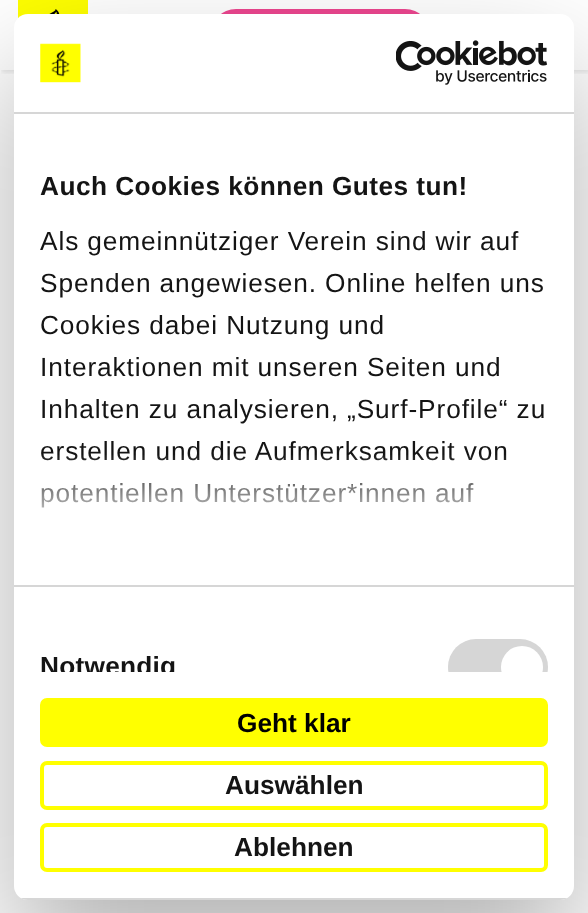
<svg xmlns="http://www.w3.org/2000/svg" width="588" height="913">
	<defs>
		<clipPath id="clip1"><rect x="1" y="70" width="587" height="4" /></clipPath>
		<linearGradient id="g1" gradientUnits="userSpaceOnUse" x1="283" y1="585" x2="283" y2="453"><stop offset="0" stop-color="#FFFFFF" /><stop offset="0.5" stop-color="#FFFFFF" stop-opacity="0.8" /><stop offset="1" stop-color="#FFFFFF" stop-opacity="0" /></linearGradient>
		<clipPath id="clip2"><rect x="14" y="114" width="560" height="558" /></clipPath>
		<clipPath id="clip3"><rect x="14" y="14" width="560" height="886" rx="14" /></clipPath>
	</defs>
	<rect width="100%" height="100%" fill="#FFFFFF" />
	<g clip-path="url(#clip1)">
		<rect x="2" y="2" width="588" height="70" fill="#000000" fill-opacity="0.1" filter="blur(2.5px)" />
	</g>
	<rect x="18" y="0" width="70" height="19" fill="#FFFF00" />
	<image x="49" y="9" width="11" height="5" href="assets/img1.png" />
	<rect x="210" y="9" width="221" height="52" rx="26" fill="#EE4790" />
	<rect x="14" y="70" width="560" height="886" rx="14" fill="#000000" fill-opacity="0.3" filter="blur(59.5px)" />
	<rect x="14" y="14" width="560" height="886" rx="14" fill="#FFFFFF" />
	<rect x="14" y="112" width="560" height="2" fill="#D6D6D6" />
	<image x="40" y="43" width="41" height="40" href="assets/img2.png" />
	<image x="396" y="40" width="152" height="45" href="assets/img3.png" />
	<rect x="14" y="585" width="560" height="2" fill="#D6D6D6" />
	<text x="40" y="195" font-family="Liberation Sans" font-size="26.25" font-weight="700" letter-spacing="0.45" fill="#141414">Auch Cookies können Gutes tun!</text>
	<g font-family="Liberation Sans" font-size="26.25" letter-spacing="0.9" fill="#141414">
		<text x="40" y="250">Als gemeinnütziger Verein sind wir auf</text>
		<text x="40" y="292">Spenden angewiesen. Online helfen uns</text>
		<text x="40" y="334">Cookies dabei Nutzung und</text>
		<text x="40" y="376">Interaktionen mit unseren Seiten und</text>
		<text x="40" y="418">Inhalten zu analysieren, „Surf-Profile“ zu</text>
		<text x="40" y="460">erstellen und die Aufmerksamkeit von</text>
		<text x="40" y="502">potentiellen Unterstützer*innen auf</text>
	</g>
	<rect x="41" y="455" width="465" height="53" fill="url(#g1)" />
	<g clip-path="url(#clip2)">
		<text x="40" y="675" font-family="Liberation Sans" font-size="26.25" font-weight="700" letter-spacing="0.25" fill="#141414">Notwendig</text>
		<rect x="448" y="639" width="100" height="56" rx="28" fill="#D6D6D6" />
		<circle cx="522" cy="667" r="21" fill="#FFFFFF" />
	</g>
	<g clip-path="url(#clip3)">
		<rect x="14" y="898" width="560" height="2" fill="#D6D6D6" />
	</g>
	<rect x="42" y="700" width="504" height="45" rx="5" fill="#FFFF00" stroke="#FFFF00" stroke-width="4" />
	<text x="237" y="732" font-family="Liberation Sans" font-size="26.25" font-weight="700" fill="#000000">Geht klar</text>
	<rect x="42" y="763" width="504" height="45" rx="5" fill="none" stroke="#FFFF00" stroke-width="4" />
	<text x="225" y="794" font-family="Liberation Sans" font-size="26.25" font-weight="700" fill="#141414">Auswählen</text>
	<rect x="42" y="825" width="504" height="45" rx="5" fill="none" stroke="#FFFF00" stroke-width="4" />
	<text x="234" y="856" font-family="Liberation Sans" font-size="26.25" font-weight="700" fill="#141414">Ablehnen</text>
</svg>
